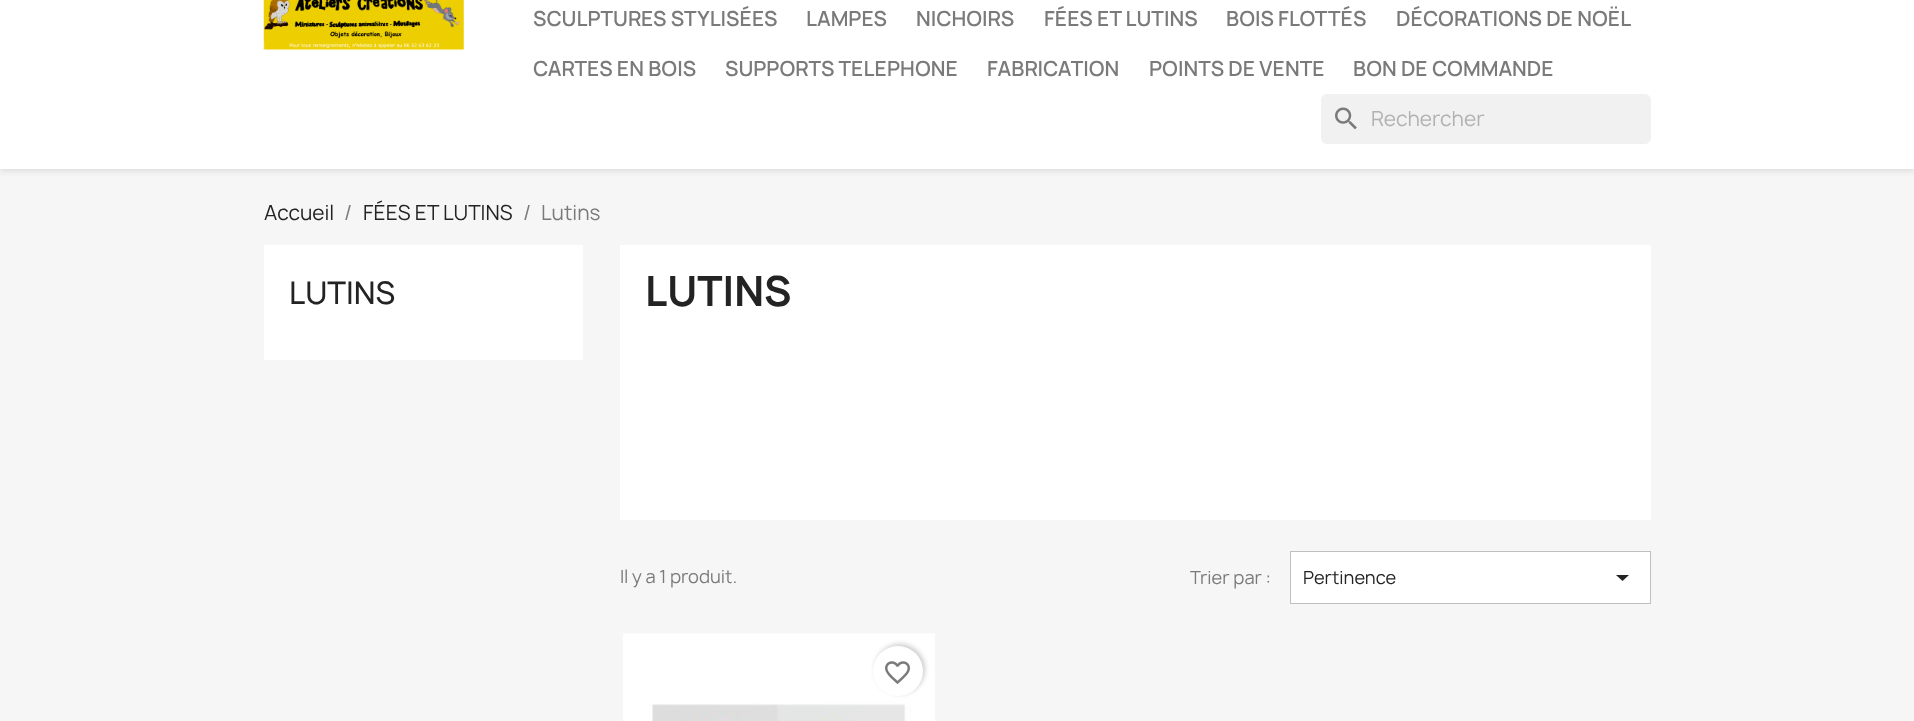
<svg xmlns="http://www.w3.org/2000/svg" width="1914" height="721">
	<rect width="100%" height="100%" fill="#F6F6F6" />
	<rect x="0" y="-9" width="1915" height="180" fill="#000000" fill-opacity="0.11" filter="blur(3px)" />
	<rect x="0" y="0" width="1914" height="169" fill="#FFFFFF" />
	<image x="263" y="0" width="201" height="50" href="assets/img1.png" />
	<g font-family="Manrope" font-size="20" font-weight="600" fill="#7A7A7A">
		<text x="533" y="26">SCULPTURES STYLISÉES</text>
		<text x="806" y="26">LAMPES</text>
		<text x="916" y="26">NICHOIRS</text>
		<text x="1044" y="26">FÉES ET LUTINS</text>
		<text x="1226" y="26">BOIS FLOTTÉS</text>
		<text x="1396" y="26">DÉCORATIONS DE NOËL</text>
		<text x="533" y="76">CARTES EN BOIS</text>
		<text x="725" y="76">SUPPORTS TELEPHONE</text>
		<text x="987" y="76">FABRICATION</text>
		<text x="1149" y="76">POINTS DE VENTE</text>
		<text x="1353" y="76">BON DE COMMANDE</text>
	</g>
	<rect x="1321" y="94" width="330" height="50" rx="6" fill="#F1F1F1" />
	<image x="1335" y="107" width="22" height="23" href="assets/img2.png" />
	<text x="1371" y="126" font-family="Manrope" font-size="20" fill="#B1B1B1">Rechercher</text>
	<text x="264" y="220" font-family="Manrope" font-size="20" fill="#232323">Accueil</text>
	<text x="344" y="220" font-family="Manrope" font-size="20" fill="#7A7A7A">/</text>
	<text x="363" y="220" font-family="Manrope" font-size="20" fill="#232323">FÉES ET LUTINS</text>
	<g font-family="Manrope" font-size="20" fill="#7A7A7A">
		<text x="523" y="220">/</text>
		<text x="541" y="220">Lutins</text>
	</g>
	<rect x="264" y="245" width="319" height="115" fill="#FFFFFF" />
	<text x="289" y="304" font-family="Manrope" font-size="30" font-weight="500" fill="#232323">LUTINS</text>
	<rect x="620" y="245" width="1031" height="275" fill="#FFFFFF" />
	<text x="645" y="306" font-family="Manrope" font-size="40" font-weight="700" fill="#232323">LUTINS</text>
	<g font-family="Manrope" font-size="17.5" fill="#7A7A7A">
		<text x="620" y="583">Il y a 1 produit.</text>
		<text x="1190" y="584">Trier par :</text>
	</g>
	<rect x="1290.5" y="551.5" width="360" height="52" fill="#FFFFFF" stroke="#BFBFBF" />
	<text x="1303" y="584" font-family="Manrope" font-size="17.5" fill="#232323">Pertinence</text>
	<path d="M1616 575H1629L1622.5 581Z" fill="#232323" />
	<image x="623" y="633" width="312" height="88" href="assets/img3.png" />
	<rect x="875" y="644" width="50" height="50" rx="25" fill="#000000" fill-opacity="0.2" filter="blur(2.5px)" />
	<circle cx="898" cy="671" r="25" fill="#FFFFFF" />
	<image x="885" y="661" width="25" height="23" href="assets/img4.png" />
</svg>
